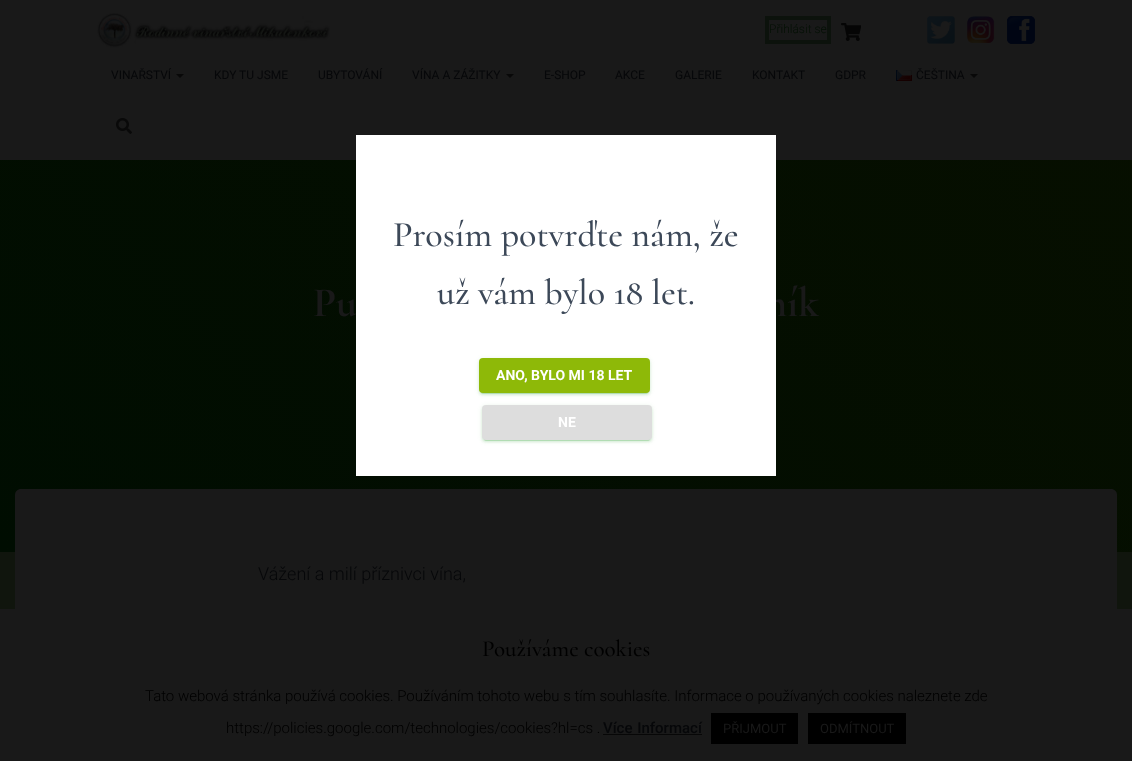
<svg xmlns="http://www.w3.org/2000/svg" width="1132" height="761">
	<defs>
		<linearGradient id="g1" gradientUnits="userSpaceOnUse" x1="144" y1="696" x2="989" y2="-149"><stop offset="0" stop-color="#000D01" /><stop offset="1" stop-color="#070F00" /></linearGradient>
	</defs>
	<rect width="100%" height="100%" fill="#10150D" />
	<rect x="0" y="0" width="1132" height="160" fill="#191919" />
	<image x="97" y="13" width="233" height="35" href="assets/img1.png" />
	<rect x="767" y="18" width="62" height="24" fill="none" stroke="#0C120C" stroke-width="4" />
	<text x="769" y="33" font-family="Roboto" font-size="12" font-weight="300" fill="#031004">Přihlásit se</text>
	<image x="841" y="23" width="20" height="18" href="assets/img2.png" />
	<image x="927" y="16" width="28" height="28" href="assets/img3.png" />
	<image x="967" y="16" width="28" height="27" href="assets/img4.png" />
	<image x="1007" y="16" width="28" height="28" href="assets/img5.png" />
	<text x="111" y="79" font-family="Roboto" font-size="12" fill="#060709">VINAŘSTVÍ</text>
	<path d="M176 74H184L180 78Z" fill="#080808" />
	<g font-family="Roboto" font-size="12" fill="#060709">
		<text x="214" y="79">KDY TU JSME</text>
		<text x="318" y="79">UBYTOVÁNÍ</text>
		<text x="412" y="79">VÍNA A ZÁŽITKY</text>
	</g>
	<path d="M506 74H514L510 78Z" fill="#080808" />
	<g font-family="Roboto" font-size="12" fill="#060709">
		<text x="544" y="79">E-SHOP</text>
		<text x="615" y="79">AKCE</text>
		<text x="675" y="79">GALERIE</text>
		<text x="752" y="79">KONTAKT</text>
		<text x="835" y="79">GDPR</text>
	</g>
	<image x="896" y="70" width="16" height="11" href="assets/img6.png" />
	<text x="916" y="79" font-family="Roboto" font-size="12" fill="#060709">ČEŠTINA</text>
	<path d="M970 74H978L974 78Z" fill="#080808" />
	<image x="116" y="118" width="16" height="16" href="assets/img7.png" />
	<rect x="0" y="160" width="1132" height="392" fill="url(#g1)" />
	<g font-family="Cormorant" font-size="42" font-weight="700" fill="#191919">
		<text x="313" y="316">Pu</text>
		<text x="765" y="316">ník</text>
	</g>
	<path d="M21 489H1111C1114.5 489 1117 491.5 1117 495V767H15V495C15 491.5 17.5 489 21 489Z" fill="#191919" />
	<text x="258" y="580" font-family="Roboto" font-size="18" font-weight="300" fill="#060709">Vážení a milí příznivci vína,</text>
	<rect x="356" y="135" width="420" height="341" fill="#FFFFFF" />
	<g font-family="Cormorant" font-size="36" font-weight="500" fill="#3C4858">
		<text x="393" y="246">Prosím potvrďte nám, že</text>
		<text x="437" y="304">už vám bylo 18 let.</text>
	</g>
	<rect x="479" y="359" width="171" height="35" rx="4" fill="#219E27" fill-opacity="0.12" filter="blur(2.5px)" />
	<rect x="481" y="363" width="167" height="31" rx="2" fill="#219E27" fill-opacity="0.2" filter="blur(0.5px)" />
	<rect x="479" y="360" width="171" height="35" rx="4" fill="#219E27" fill-opacity="0.14" filter="blur(1px)" />
	<rect x="479" y="358" width="171" height="35" rx="4" fill="#8EB908" />
	<text x="496" y="380" font-family="Roboto" font-size="14" font-weight="700" fill="#FFFFFF">ANO, BYLO MI 18 LET</text>
	<rect x="482" y="406" width="170" height="35" rx="4" fill="#219E27" fill-opacity="0.12" filter="blur(2.5px)" />
	<rect x="484" y="410" width="166" height="31" rx="2" fill="#219E27" fill-opacity="0.2" filter="blur(0.5px)" />
	<rect x="482" y="407" width="170" height="35" rx="4" fill="#219E27" fill-opacity="0.14" filter="blur(1px)" />
	<rect x="482" y="405" width="170" height="35" rx="4" fill="#DDDDDD" />
	<text x="558" y="427" font-family="Roboto" font-size="14" font-weight="700" fill="#FFFFFF">NE</text>
	<rect x="0" y="609" width="1132" height="152" fill="#191919" />
	<text x="482" y="656" font-family="Cormorant" font-size="23" font-weight="500" fill="#000000">Používáme cookies</text>
	<g font-family="Roboto" font-size="15" font-weight="300" fill="#000000">
		<text x="145" y="701">Tato webová stránka používá cookies. Používáním tohoto webu s tím souhlasíte. Informace o používaných cookies naleznete zde</text>
		<text x="226" y="733">https://policies.google.com/technologies/cookies?hl=cs .</text>
	</g>
	<text x="603" y="733" word-spacing="1" font-family="Roboto" font-size="15" font-weight="500" fill="#060709">Více Informací</text>
	<rect x="603" y="734" width="99" height="1" fill="#070707" />
	<rect x="711" y="713" width="87" height="31" fill="#000000" />
	<text x="723" y="733" font-family="Roboto" font-size="13" fill="#191919">PŘIJMOUT</text>
	<rect x="808" y="713" width="98" height="31" fill="#000000" />
	<text x="820" y="733" font-family="Roboto" font-size="13" fill="#191919">ODMÍTNOUT</text>
</svg>
